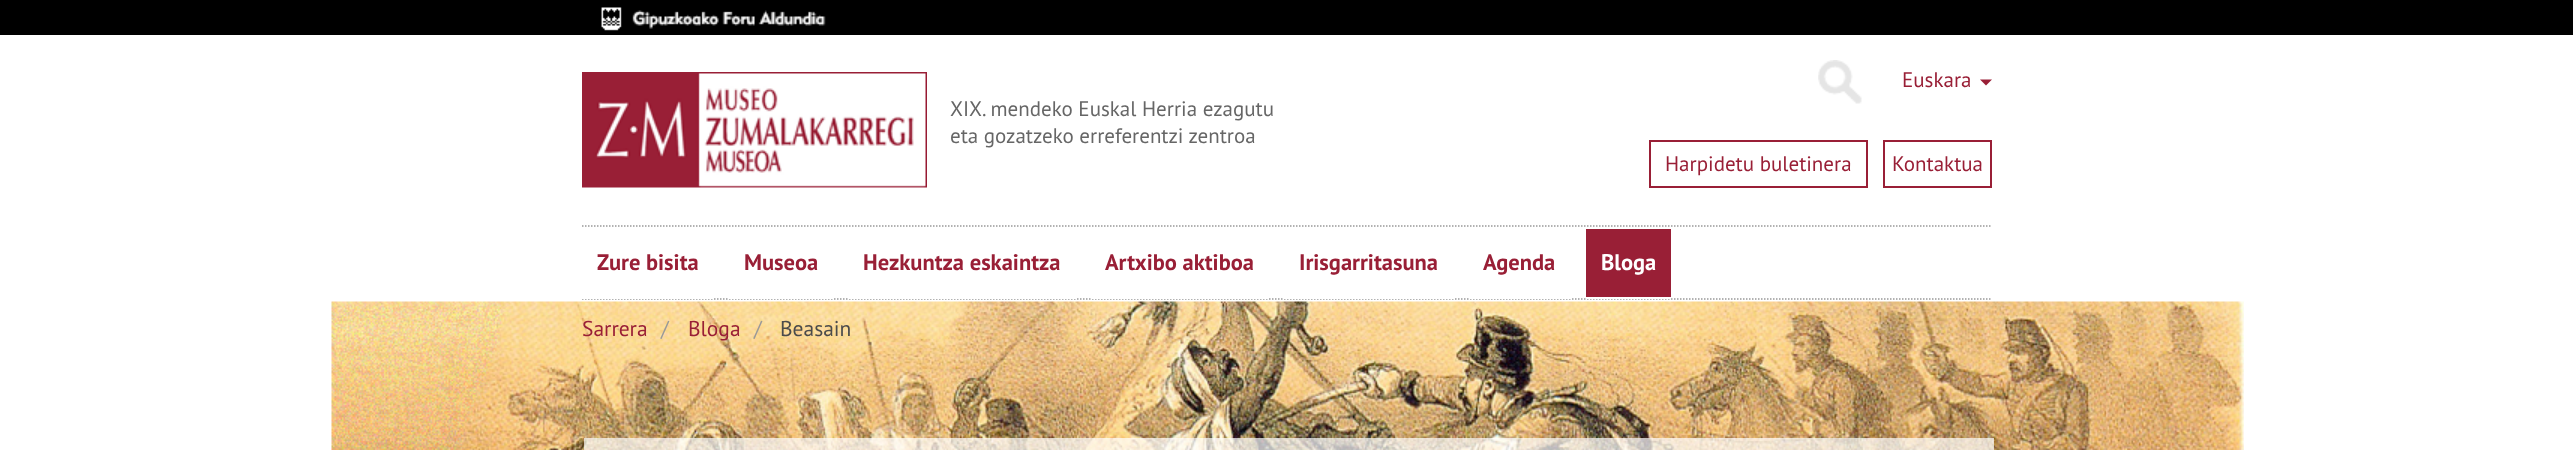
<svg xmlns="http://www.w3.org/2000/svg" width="2573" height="450">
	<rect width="100%" height="100%" fill="#FFFFFF" />
	<rect x="0" y="0" width="2573" height="35" fill="#000000" />
	<image x="601" y="7" width="225" height="24" href="assets/img1.png" />
	<image x="582" y="72" width="345" height="116" href="assets/img2.png" />
	<image x="1818" y="60" width="44" height="44" href="assets/img3.png" />
	<g font-family="PT Sans" font-size="21" fill="#666666">
		<text x="950" y="116">XIX. mendeko Euskal Herria ezagutu</text>
		<text x="950" y="143">eta gozatzeko erreferentzi zentroa</text>
	</g>
	<text x="1902" y="87" font-family="PT Sans" font-size="21" fill="#991F36">Euskara</text>
	<path d="M1980 79.5H1992L1986 85.5Z" fill="#991F36" />
	<rect x="1650" y="141" width="217" height="46" fill="none" stroke="#991F36" stroke-width="2" />
	<text x="1665" y="171" font-family="PT Sans" font-size="21" fill="#991F36">Harpidetu buletinera</text>
	<rect x="1884" y="141" width="107" height="46" fill="none" stroke="#991F36" stroke-width="2" />
	<text x="1892" y="171" font-family="PT Sans" font-size="21" fill="#991F36">Kontaktua</text>
	<path d="M582 226H1992" fill="none" stroke="#999999" stroke-width="1.5" stroke-dasharray="1.5 1.5" />
	<path d="M582 299H1992" fill="none" stroke="#999999" stroke-width="1.5" stroke-dasharray="1.5 1.5" />
	<rect x="582" y="298" width="132" height="1" fill="#FFFFFF" />
	<text x="597" y="270" font-family="PT Sans" font-size="22.5" font-weight="700" fill="#991F36">Zure bisita</text>
	<rect x="729" y="298" width="104" height="1" fill="#FFFFFF" />
	<text x="744" y="270" font-family="PT Sans" font-size="22.5" font-weight="700" fill="#991F36">Museoa</text>
	<rect x="848" y="298" width="228" height="1" fill="#FFFFFF" />
	<text x="863" y="270" font-family="PT Sans" font-size="22.5" font-weight="700" fill="#991F36">Hezkuntza eskaintza</text>
	<rect x="1091" y="298" width="178" height="1" fill="#FFFFFF" />
	<text x="1105" y="270" font-family="PT Sans" font-size="22.5" font-weight="700" fill="#991F36">Artxibo aktiboa</text>
	<rect x="1284" y="298" width="170" height="1" fill="#FFFFFF" />
	<text x="1299" y="270" font-family="PT Sans" font-size="22.5" font-weight="700" fill="#991F36">Irisgarritasuna</text>
	<rect x="1469" y="298" width="102" height="1" fill="#FFFFFF" />
	<text x="1483" y="270" font-family="PT Sans" font-size="22.5" font-weight="700" fill="#991F36">Agenda</text>
	<rect x="1586" y="229" width="85" height="68" fill="#991F36" />
	<rect x="1586" y="298" width="85" height="1" fill="#FFFFFF" />
	<text x="1601" y="270" font-family="PT Sans" font-size="22.5" font-weight="700" fill="#FFFFFF">Bloga</text>
	<image x="331" y="301" width="1913" height="149" href="assets/img4.png" />
	<text x="582" y="336" font-family="PT Sans" font-size="21.5" fill="#991F36">Sarrera</text>
	<text x="661" y="336" font-family="PT Sans" font-size="21.5" fill="#999999">/</text>
	<text x="688" y="336" font-family="PT Sans" font-size="21.5" fill="#991F36">Bloga</text>
	<text x="754" y="336" font-family="PT Sans" font-size="21.5" fill="#999999">/</text>
	<text x="780" y="336" font-family="PT Sans" font-size="21.5" fill="#4B4B4B">Beasain</text>
	<rect x="584" y="438" width="1410" height="12" fill="#FFFFFF" fill-opacity="0.7" />
</svg>
